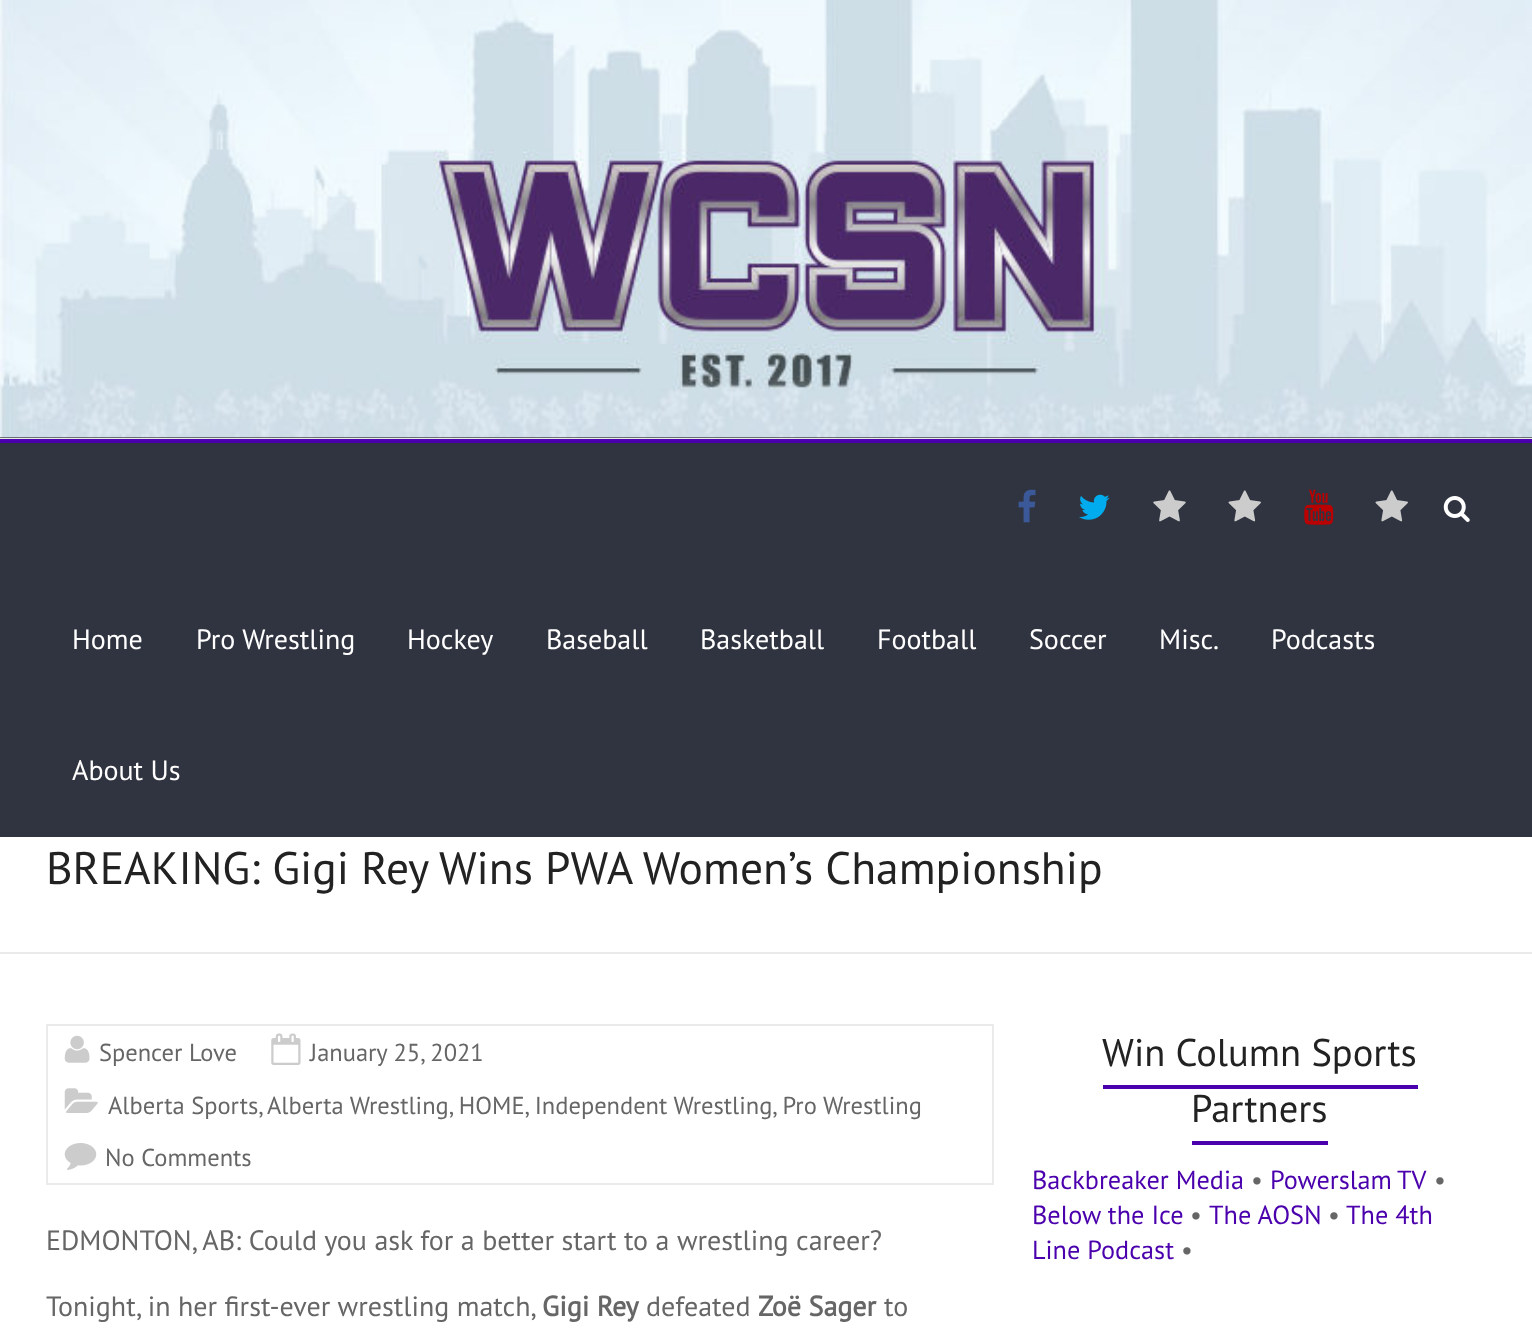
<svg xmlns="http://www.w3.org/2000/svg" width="1532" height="1332">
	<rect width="100%" height="100%" fill="#FFFFFF" />
	<rect x="0" y="437" width="1532" height="1" fill="#000000" />
	<image x="0" y="0" width="1532" height="438" href="assets/img1.png" />
	<rect x="0" y="438" width="1532" height="1" fill="#EAEAEA" />
	<rect x="0" y="443" width="1532" height="394" fill="#303440" />
	<rect x="0" y="439" width="1532" height="4" fill="#4B00AD" />
	<image x="1018" y="489" width="18" height="34" href="assets/img2.png" />
	<image x="1079" y="494" width="31" height="26" href="assets/img3.png" />
	<image x="1153" y="490" width="33" height="32" href="assets/img4.png" />
	<image x="1228" y="490" width="33" height="32" href="assets/img5.png" />
	<image x="1304" y="489" width="30" height="36" href="assets/img6.png" />
	<image x="1375" y="490" width="33" height="32" href="assets/img5.png" />
	<image x="1443" y="496" width="27" height="26" href="assets/img7.png" />
	<g font-family="PT Sans" font-size="28" fill="#FFFFFF">
		<text x="72" y="649">Home</text>
		<text x="196" y="649">Pro Wrestling</text>
		<text x="407" y="649">Hockey</text>
		<text x="546" y="649">Baseball</text>
		<text x="700" y="649">Basketball</text>
		<text x="877" y="649">Football</text>
		<text x="1029" y="649">Soccer</text>
		<text x="1159" y="649">Misc.</text>
		<text x="1271" y="649">Podcasts</text>
		<text x="72" y="780">About Us</text>
	</g>
	<rect x="0" y="952" width="1532" height="2" fill="#EAEAEA" />
	<text x="46" y="884" font-family="PT Sans" font-size="45.5" fill="#222222">BREAKING: Gigi Rey Wins PWA Women’s Championship</text>
	<rect x="47" y="1025" width="946" height="159" fill="none" stroke="#EAEAEA" stroke-width="2" />
	<image x="64" y="1035" width="26" height="28" href="assets/img8.png" />
	<text x="99" y="1061" font-family="PT Sans" font-size="24.5" fill="#666666">Spencer Love</text>
	<image x="271" y="1033" width="30" height="32" href="assets/img9.png" />
	<text x="310" y="1061" font-family="PT Sans" font-size="24.5" fill="#666666">January 25, 2021</text>
	<image x="64" y="1088" width="34" height="25" href="assets/img10.png" />
	<g font-family="PT Sans" font-size="24.5" fill="#666666">
		<text x="108" y="1114">Alberta Sports,</text>
		<text x="267" y="1114">Alberta Wrestling, HOME, Independent Wrestling, Pro Wrestling</text>
	</g>
	<image x="64" y="1143" width="33" height="27" href="assets/img11.png" />
	<text x="105" y="1166" font-family="PT Sans" font-size="24.5" fill="#666666">No Comments</text>
	<g font-family="PT Sans" font-size="28" fill="#666666">
		<text x="46" y="1250">EDMONTON, AB: Could you ask for a better start to a wrestling career?</text>
		<text x="46" y="1316">Tonight, in her first-ever wrestling match,</text>
	</g>
	<text x="542" y="1316" font-family="PT Sans" font-size="28" font-weight="700" fill="#666666">Gigi Rey</text>
	<text x="646" y="1316" font-family="PT Sans" font-size="28" fill="#666666">defeated</text>
	<text x="758" y="1316" font-family="PT Sans" font-size="28" font-weight="700" fill="#666666">Zoë Sager</text>
	<text x="884" y="1316" font-family="PT Sans" font-size="28" fill="#666666">to</text>
	<g font-family="PT Sans" font-size="38.5" fill="#222222">
		<text x="1102" y="1066">Win Column Sports</text>
		<text x="1191" y="1122">Partners</text>
	</g>
	<rect x="1103" y="1085" width="315" height="4" fill="#4B00AD" />
	<rect x="1192" y="1141" width="136" height="4" fill="#4B00AD" />
	<text x="1032" y="1189" font-family="PT Sans" font-size="26.25" fill="#4B00AD">Backbreaker Media</text>
	<text x="1251" y="1189" font-family="PT Sans" font-size="26.25" fill="#666666">•</text>
	<text x="1270" y="1189" word-spacing="-1" font-family="PT Sans" font-size="26.25" fill="#4B00AD">Powerslam TV</text>
	<text x="1434" y="1189" font-family="PT Sans" font-size="26.25" fill="#666666">•</text>
	<text x="1032" y="1224" font-family="PT Sans" font-size="26.25" fill="#4B00AD">Below the Ice</text>
	<text x="1190" y="1224" font-family="PT Sans" font-size="26.25" fill="#666666">•</text>
	<text x="1209" y="1224" font-family="PT Sans" font-size="26.25" fill="#4B00AD">The AOSN</text>
	<text x="1328" y="1224" font-family="PT Sans" font-size="26.25" fill="#666666">•</text>
	<g font-family="PT Sans" font-size="26.25" fill="#4B00AD">
		<text x="1346" y="1224">The 4th</text>
		<text x="1032" y="1259">Line Podcast</text>
	</g>
	<text x="1181" y="1259" font-family="PT Sans" font-size="26.25" fill="#666666">•</text>
</svg>
